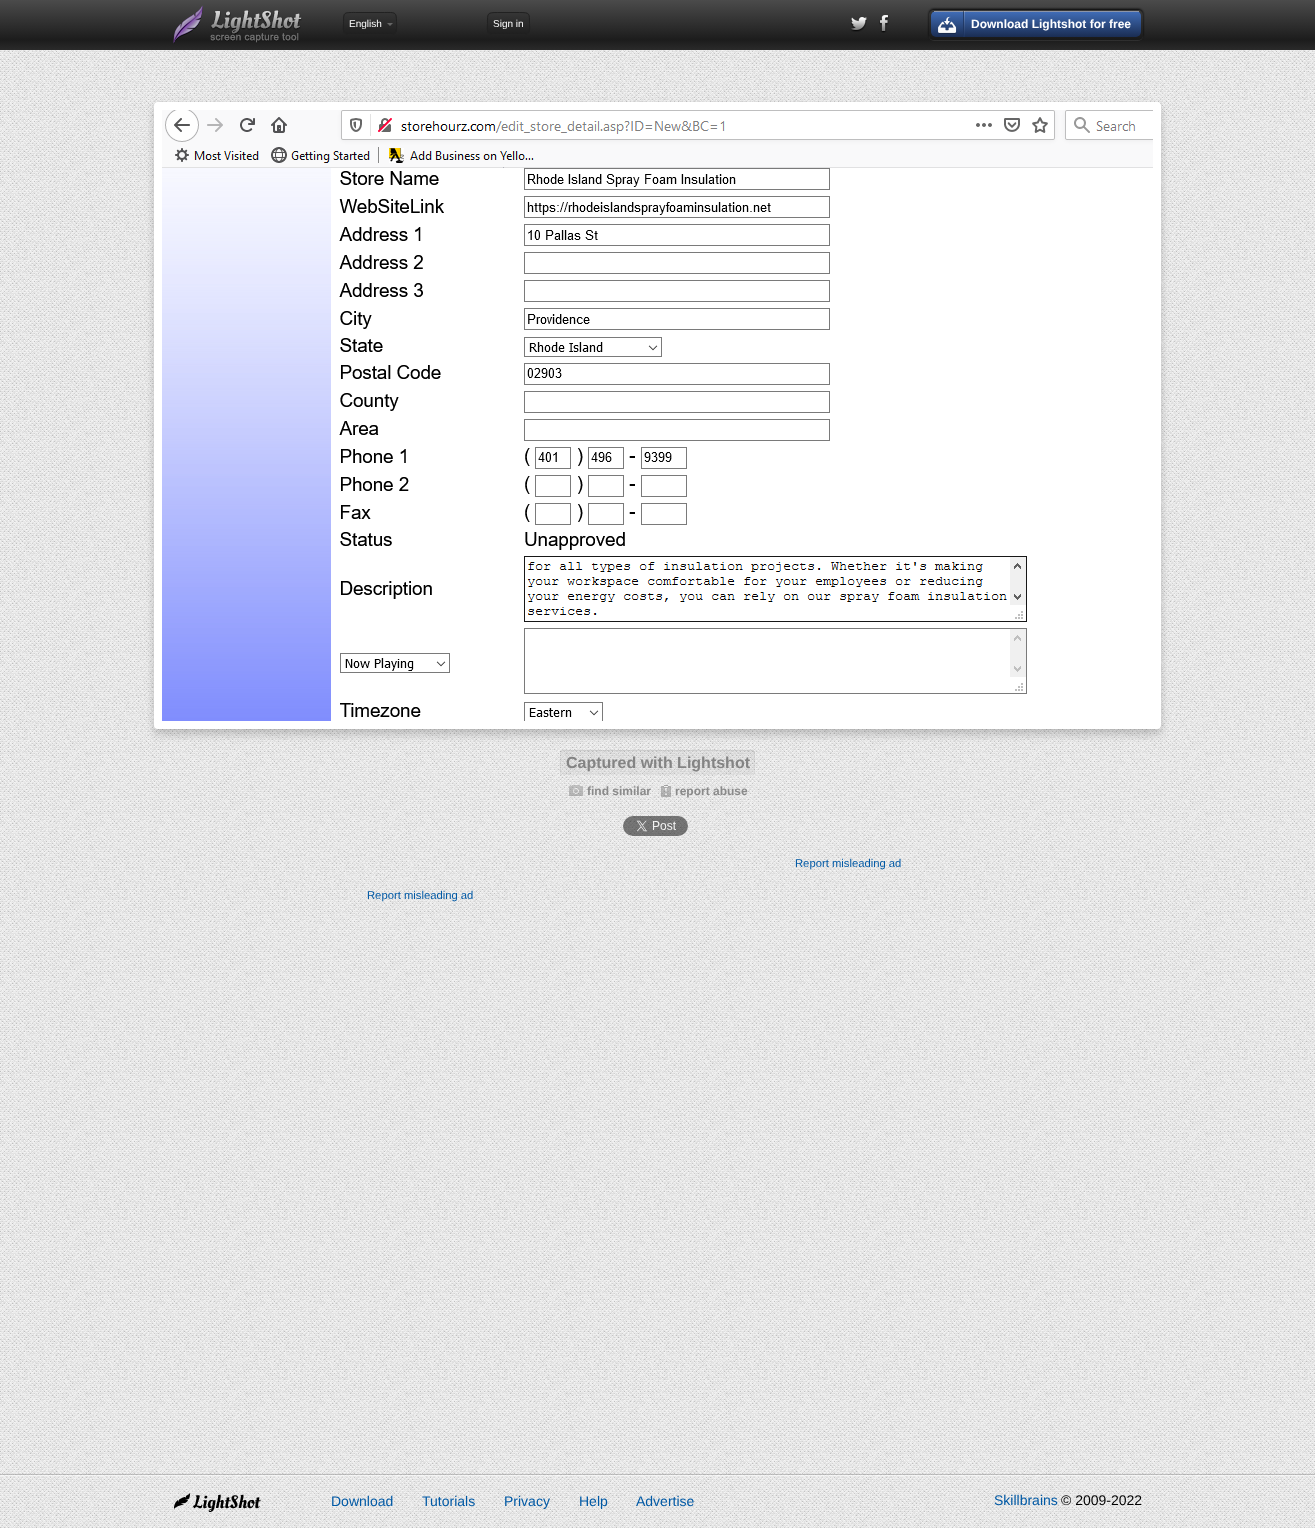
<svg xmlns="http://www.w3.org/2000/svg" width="1315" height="1528">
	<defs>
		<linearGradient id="g1" gradientUnits="userSpaceOnUse" x1="658" y1="0" x2="658" y2="50"><stop offset="0" stop-color="#4B4B4B" /><stop offset="0.8" stop-color="#1C1C1C" /><stop offset="1" stop-color="#2A2A2A" /></linearGradient>
		<clipPath id="clip1"><path d="M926 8H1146V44H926ZM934 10H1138C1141 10 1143 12 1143 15V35C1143 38 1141 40 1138 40H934C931 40 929 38 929 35V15C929 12 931 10 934 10Z" clip-rule="evenodd" /></clipPath>
		<clipPath id="clip2"><path d="M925 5H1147V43H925ZM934 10H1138C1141 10 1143 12 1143 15V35C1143 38 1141 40 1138 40H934C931 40 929 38 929 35V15C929 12 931 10 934 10Z" clip-rule="evenodd" /></clipPath>
		<clipPath id="clip3"><rect x="931" y="11" width="210" height="26" rx="5" /></clipPath>
		<linearGradient id="g2" gradientUnits="userSpaceOnUse" x1="1036" y1="-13" x2="1036" y2="12"><stop offset="0" stop-color="#406CB6" /><stop offset="1" stop-color="#1B2D54" /></linearGradient>
		<linearGradient id="g3" gradientUnits="userSpaceOnUse" x1="1036" y1="12" x2="1036" y2="37"><stop offset="0" stop-color="#406DB8" stop-opacity="0.98" /><stop offset="1" stop-color="#1A2D54" stop-opacity="0.98" /></linearGradient>
		<clipPath id="clip4"><path d="M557 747H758V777H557ZM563 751H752C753.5 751 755 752.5 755 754V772C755 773.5 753.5 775 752 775H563C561.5 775 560 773.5 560 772V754C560 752.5 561.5 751 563 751Z" clip-rule="evenodd" /></clipPath>
	</defs>
	<rect width="100%" height="100%" fill="#FFFFFF" />
	<image x="0" y="50" width="1315" height="1478" href="assets/img1.png" />
	<rect x="0" y="0" width="1315" height="50" fill="url(#g1)" />
	<image x="173" y="5" width="129" height="39" href="assets/img2.png" />
	<rect x="343" y="12" width="54" height="23" rx="5" fill="#000000" fill-opacity="0.1" />
	<path d="M395 33C394.5 34 393 34.5 392 34.5H348C347 34.5 345.5 34 345 33" fill="none" stroke="#222222" />
	<path d="M345 33C342.5 31 343.5 26.5 343.5 23.5C343.5 12 343.5 12.5 355.5 12.5H384.5C394.5 12.5 396.5 11.5 396.5 21.5C396.5 24.5 397.5 30.5 395 33" fill="none" stroke="#212121" />
	<text x="349" y="27" font-family="Liberation Sans" font-size="10" fill="#FFFFFF">English</text>
	<path d="M387 23H393L390 26Z" fill="#666666" />
	<rect x="487" y="12" width="43" height="23" rx="5" fill="#000000" fill-opacity="0.1" />
	<path d="M528 33C527.5 34 526 34.5 525 34.5H492C491 34.5 489.5 34 489 33" fill="none" stroke="#222222" />
	<path d="M489 33C486.5 31 487.5 26.5 487.5 23.5C487.5 13.5 487 12.5 497.5 12.5H519.5C530 12.5 529.5 13.5 529.5 23.5C529.5 26.5 530.5 31 528 33" fill="none" stroke="#212121" />
	<text x="493" y="27" font-family="Liberation Sans" font-size="10" fill="#FFFFFF">Sign in</text>
	<image x="851" y="17" width="16" height="15" href="assets/img3.png" />
	<image x="879" y="15" width="10" height="18" href="assets/img4.png" />
	<g clip-path="url(#clip1)">
		<rect x="929" y="11" width="214" height="30" rx="5" fill="#FFFFFF" fill-opacity="0.1" filter="blur(0.5px)" />
	</g>
	<g clip-path="url(#clip2)">
		<rect x="929" y="9" width="214" height="30" rx="5" fill="#000000" fill-opacity="0.99" filter="blur(1px)" />
	</g>
	<rect x="929" y="10" width="214" height="30" rx="5" fill="#000000" fill-opacity="0.11" />
	<g clip-path="url(#clip3)">
		<rect x="931" y="11" width="210" height="1" fill="url(#g2)" />
		<path d="M931 12H1141V32C1141 35 1139 37 1136 37H936C933 37 931 35 931 32Z" fill="url(#g3)" />
	</g>
	<rect x="934" y="11" width="205" height="1" fill="#FBFBFB" fill-opacity="0.5" />
	<image x="938" y="16" width="19" height="18" href="assets/img5.png" />
	<image x="963" y="11" width="2" height="26" href="assets/img6.png" />
	<text x="971" y="28" font-family="Liberation Sans" font-size="12" font-weight="700" fill="#FFFFFF">Download Lightshot for free</text>
	<rect x="154" y="107" width="1007" height="627" rx="4" fill="#000000" fill-opacity="0.2" filter="blur(5px)" />
	<rect x="154" y="102" width="1007" height="627" rx="4" fill="#FFFFFF" />
	<image x="162" y="110" width="991" height="611" href="assets/img7.png" />
	<g clip-path="url(#clip4)">
		<rect x="560" y="750" width="195" height="24" rx="3" fill="#000000" fill-opacity="0.12" filter="blur(0.5px)" />
	</g>
	<rect x="560" y="751" width="195" height="24" fill="#000000" fill-opacity="0.04" />
	<rect x="754" y="753" width="1" height="21" fill="#000000" fill-opacity="0.04" />
	<rect x="560" y="753" width="1" height="21" fill="#000000" fill-opacity="0.04" />
	<text x="566" y="768" font-family="Liberation Sans" font-size="16" font-weight="700" fill="#848484">Captured with Lightshot</text>
	<image x="569" y="785" width="14" height="11" href="assets/img8.png" />
	<text x="587" y="795" font-family="Liberation Sans" font-size="12" font-weight="700" fill="#8A8A8A">find similar</text>
	<image x="661" y="785" width="10" height="12" href="assets/img9.png" />
	<text x="675" y="795" font-family="Liberation Sans" font-size="12" font-weight="700" fill="#8A8A8A">report abuse</text>
	<image x="623" y="816" width="65" height="20" href="assets/img10.png" />
	<g font-family="Liberation Sans" font-size="11.25" fill="#0059A5">
		<text x="795" y="867">Report misleading ad</text>
		<text x="367" y="899">Report misleading ad</text>
	</g>
	<rect x="0" y="1474" width="1315" height="1" fill="#000000" fill-opacity="0.2" />
	<rect x="0" y="1475" width="1315" height="1" fill="#FFFFFF" fill-opacity="0.6" />
	<image x="174" y="1493" width="87" height="19" href="assets/img11.png" />
	<g font-family="Liberation Sans" font-size="14" fill="#0059A5">
		<text x="331" y="1506">Download</text>
		<text x="422" y="1506">Tutorials</text>
		<text x="504" y="1506">Privacy</text>
		<text x="579" y="1506">Help</text>
		<text x="636" y="1506">Advertise</text>
		<text x="994" y="1505">Skillbrains</text>
	</g>
	<text x="1061" y="1505" font-family="Liberation Sans" font-size="14" fill="#000000">© 2009-2022</text>
</svg>
